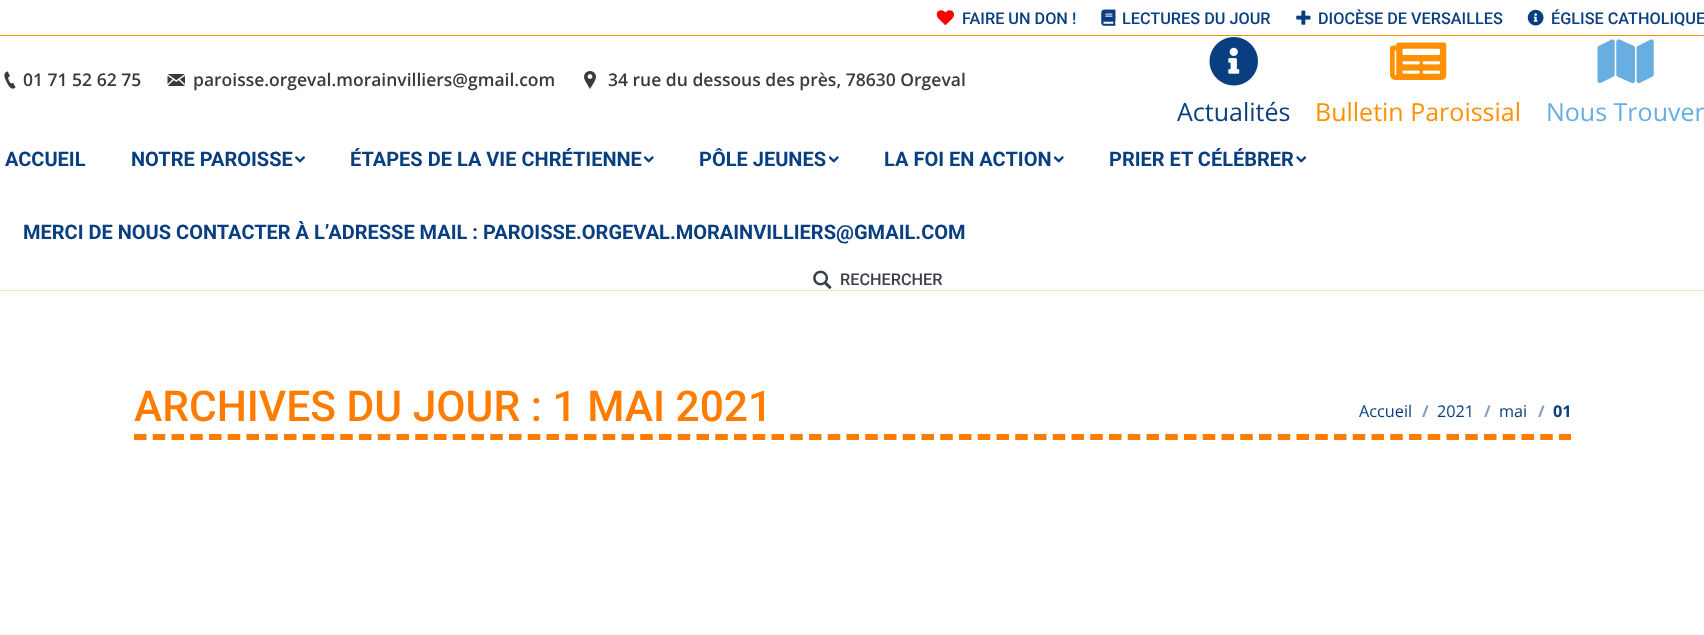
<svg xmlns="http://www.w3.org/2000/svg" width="1704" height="635">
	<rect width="100%" height="100%" fill="#FFFFFF" />
	<rect x="0" y="290" width="1704" height="1" fill="#FFDEB3" />
	<image x="936" y="10" width="18" height="15" href="assets/img1.png" />
	<text x="962" y="24" font-family="Roboto" font-size="16.25" font-weight="500" fill="#093F80">FAIRE UN DON !</text>
	<image x="1101" y="9" width="15" height="17" href="assets/img2.png" />
	<text x="1122" y="24" font-family="Roboto" font-size="16.25" font-weight="500" fill="#093F80">LECTURES DU JOUR</text>
	<image x="1296" y="10" width="15" height="15" href="assets/img3.png" />
	<text x="1318" y="24" font-family="Roboto" font-size="16.25" font-weight="500" fill="#093F80">DIOCÈSE DE VERSAILLES</text>
	<image x="1527" y="9" width="17" height="17" href="assets/img4.png" />
	<text x="1551" y="24" font-family="Roboto" font-size="16.25" font-weight="500" fill="#093F80">ÉGLISE CATHOLIQUE</text>
	<rect x="0" y="35" width="1704" height="1" fill="#FF9000" />
	<image x="4" y="71" width="12" height="18" href="assets/img5.png" />
	<text x="23" y="86" font-family="Open Sans" font-size="17.5" font-weight="600" fill="#393940">01 71 52 62 75</text>
	<image x="167" y="74" width="18" height="12" href="assets/img6.png" />
	<text x="193" y="86" font-family="Open Sans" font-size="17.5" font-weight="600" fill="#393940">paroisse.orgeval.morainvilliers@gmail.com</text>
	<image x="584" y="71" width="12" height="18" href="assets/img7.png" />
	<text x="608" y="86" font-family="Open Sans" font-size="17.5" font-weight="600" fill="#393940">34 rue du dessous des près, 78630 Orgeval</text>
	<image x="1209" y="37" width="49" height="49" href="assets/img8.png" />
	<text x="1177" y="121" font-family="Open Sans" font-size="25" fill="#093F80">Actualités</text>
	<image x="1390" y="42" width="57" height="38" href="assets/img9.png" />
	<text x="1315" y="121" font-family="Open Sans" font-size="25" fill="#FF9000">Bulletin Paroissial</text>
	<image x="1597" y="39" width="57" height="45" href="assets/img10.png" />
	<text x="1546" y="121" font-family="Open Sans" font-size="25" fill="#68AEE2">Nous Trouver</text>
	<g font-family="Roboto" font-size="20" font-weight="700" fill="#093F80">
		<text x="5" y="166">ACCUEIL</text>
		<text x="131" y="166">NOTRE PAROISSE</text>
	</g>
	<image x="295" y="156" width="10" height="7" href="assets/img11.png" />
	<text x="350" y="166" font-family="Roboto" font-size="20" font-weight="700" fill="#093F80">ÉTAPES DE LA VIE CHRÉTIENNE</text>
	<image x="644" y="156" width="10" height="7" href="assets/img12.png" />
	<text x="699" y="166" font-family="Roboto" font-size="20" font-weight="700" fill="#093F80">PÔLE JEUNES</text>
	<image x="829" y="156" width="10" height="7" href="assets/img12.png" />
	<text x="884" y="166" font-family="Roboto" font-size="20" font-weight="700" fill="#093F80">LA FOI EN ACTION</text>
	<image x="1054" y="156" width="10" height="7" href="assets/img12.png" />
	<text x="1109" y="166" font-family="Roboto" font-size="20" font-weight="700" fill="#093F80">PRIER ET CÉLÉBRER</text>
	<image x="1296" y="156" width="10" height="7" href="assets/img13.png" />
	<text x="23" y="239" font-family="Roboto" font-size="20" font-weight="700" fill="#093F80">MERCI DE NOUS CONTACTER À L’ADRESSE MAIL : PAROISSE.ORGEVAL.MORAINVILLIERS@GMAIL.COM</text>
	<image x="813" y="270" width="19" height="20" href="assets/img14.png" />
	<text x="840" y="285" font-family="Roboto" font-size="16.25" font-weight="500" fill="#3B3F4A">RECHERCHER</text>
	<path d="M134 437H1571" fill="none" stroke="#FF7C00" stroke-width="6.2" stroke-dasharray="12.5 6.25" />
	<text x="134" y="421" font-family="Roboto" font-size="42.5" font-weight="500" fill="#FF7C00">ARCHIVES DU JOUR : 1 MAI 2021</text>
	<text x="1359" y="417" font-family="Open Sans" font-size="16.25" fill="#093F80">Accueil</text>
	<text x="1422" y="417" font-family="Open Sans" font-size="16.25" font-weight="700" fill="#849FC0">/</text>
	<text x="1437" y="417" font-family="Open Sans" font-size="16.25" fill="#093F80">2021</text>
	<text x="1484" y="417" font-family="Open Sans" font-size="16.25" font-weight="700" fill="#849FC0">/</text>
	<text x="1499" y="417" font-family="Open Sans" font-size="16.25" fill="#093F80">mai</text>
	<text x="1538" y="417" font-family="Open Sans" font-size="16.25" font-weight="700" fill="#849FC0">/</text>
	<text x="1553" y="417" font-family="Open Sans" font-size="16.25" font-weight="700" fill="#093F80">01</text>
</svg>
